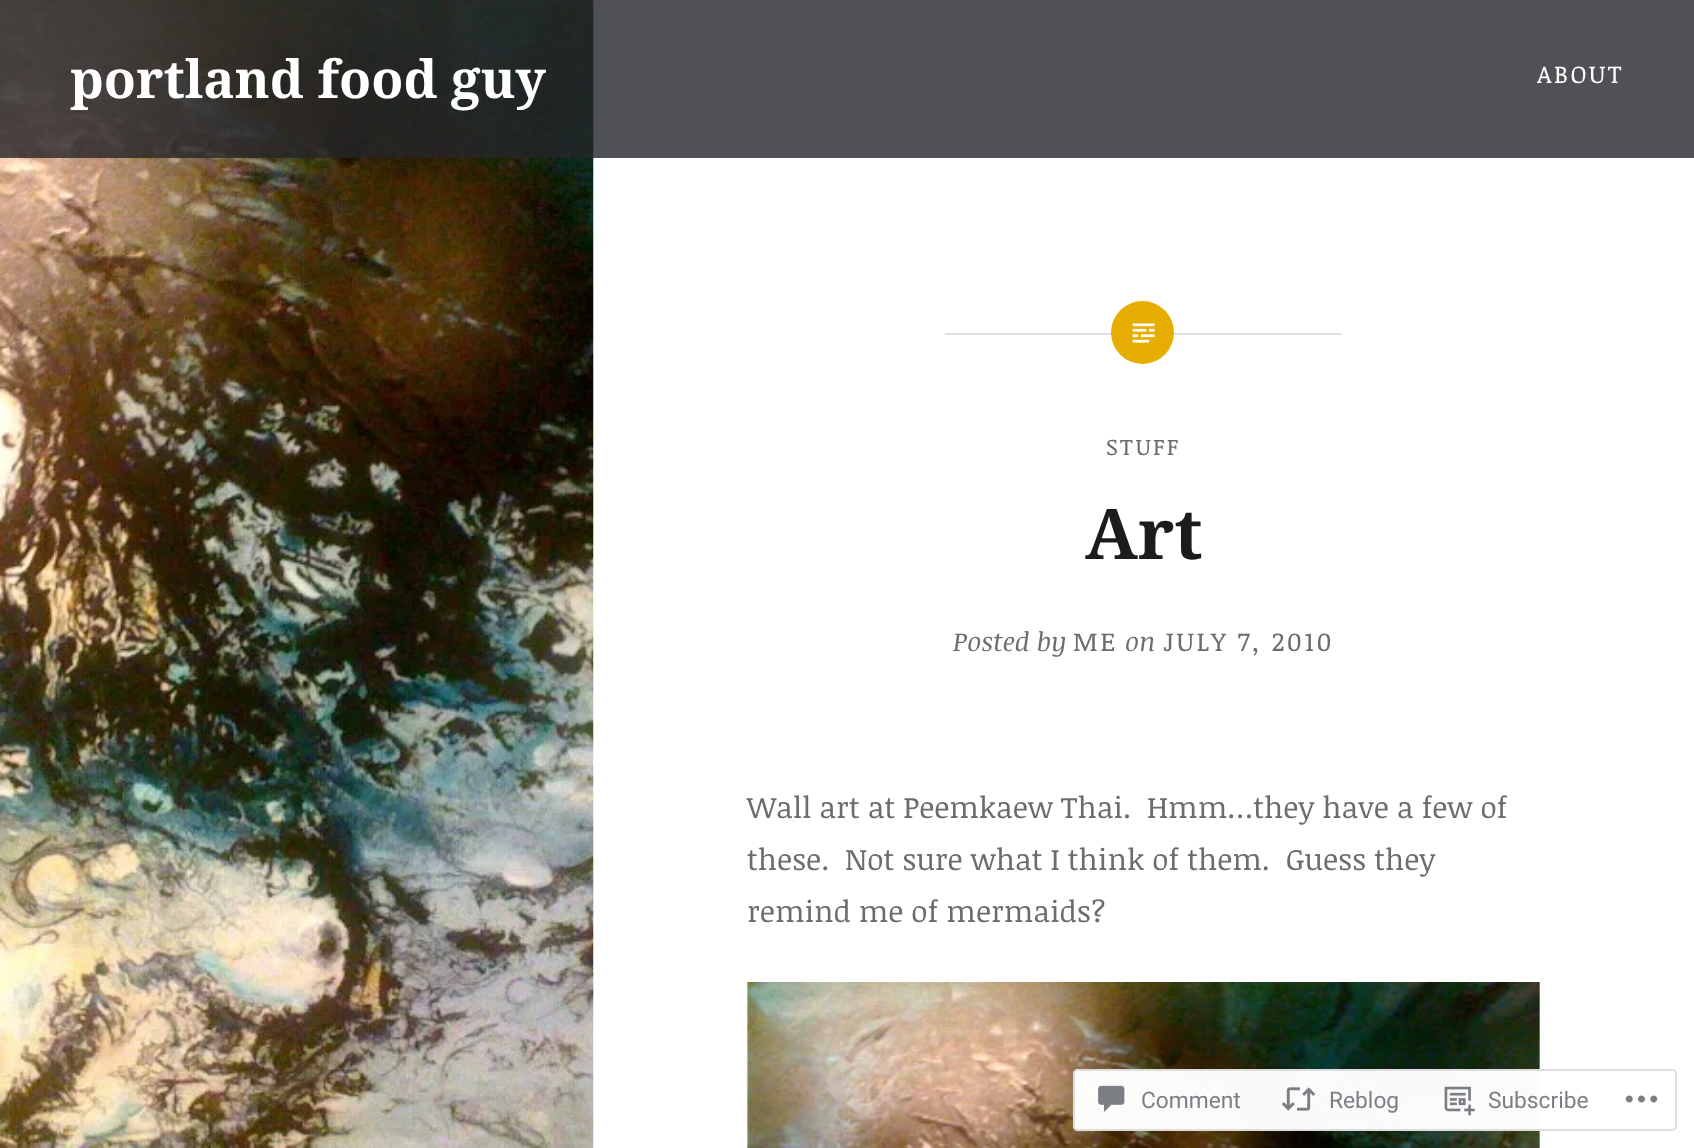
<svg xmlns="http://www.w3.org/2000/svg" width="1694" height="1148">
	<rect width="100%" height="100%" fill="#FFFFFF" />
	<image x="0" y="0" width="594" height="1148" href="assets/img1.png" />
	<rect x="0" y="0" width="1694" height="158" fill="#242629" fill-opacity="0.8" />
	<text x="70" y="98" font-family="Noto Serif" font-size="52.5" font-weight="700" fill="#FFFFFF">portland food guy</text>
	<text x="1537" y="83" font-family="Noticia Text" font-size="24.5" letter-spacing="2.5" fill="#FFFFFF">ABOUT</text>
	<rect x="945" y="333" width="397" height="2" fill="#E0E0E0" />
	<circle cx="1142.5" cy="332.5" r="31.5" fill="#E7AE01" />
	<image x="1132" y="323" width="23" height="20" href="assets/img2.png" />
	<text x="1106" y="455" font-family="Noticia Text" font-size="22.75" letter-spacing="2.25" fill="#6A6C6E">STUFF</text>
	<text x="1085" y="559" font-family="Noto Serif" font-size="70" font-weight="700" fill="#1A1C1E">Art</text>
	<text x="953" y="651" font-family="Noticia Text" font-size="26.25" font-style="italic" fill="#6A6C6E">Posted by</text>
	<text x="1073" y="651" font-family="Noticia Text" font-size="26.25" letter-spacing="2.6" fill="#6A6C6E">ME</text>
	<text x="1125" y="651" font-family="Noticia Text" font-size="26.25" font-style="italic" fill="#6A6C6E">on</text>
	<text x="1163" y="651" font-family="Noticia Text" font-size="26.25" letter-spacing="2.6" fill="#6A6C6E">JULY 7, 2010</text>
	<g font-family="Noticia Text" font-size="29.75" fill="#6A6C6E">
		<text x="747" y="818" xml:space="preserve">Wall art at Peemkaew Thai.  Hmm…they have a few of</text>
		<text x="747" y="870" xml:space="preserve">these.  Not sure what I think of them.  Guess they</text>
		<text x="747" y="922">remind me of mermaids?</text>
	</g>
	<image x="746" y="982" width="794" height="166" href="assets/img3.png" />
	<rect x="1073" y="1069" width="604" height="62" rx="5" fill="#FFFFFF" fill-opacity="0.98" />
	<rect x="1074" y="1070" width="602" height="60" rx="4" fill="none" stroke="#DCDCDE" stroke-opacity="0.98" stroke-width="2" />
	<image x="1098" y="1085" width="27" height="27" href="assets/img4.png" />
	<text x="1141" y="1108" font-family="Roboto" font-size="22.75" fill="#7B7F84">Comment</text>
	<image x="1281" y="1087" width="35" height="24" href="assets/img5.png" />
	<text x="1329" y="1108" font-family="Roboto" font-size="22.75" fill="#7B7F84">Reblog</text>
	<image x="1444" y="1086" width="31" height="30" href="assets/img6.png" />
	<text x="1488" y="1108" font-family="Roboto" font-size="22.75" fill="#7B7F84">Subscribe</text>
	<image x="1625" y="1095" width="33" height="8" href="assets/img7.png" />
</svg>
